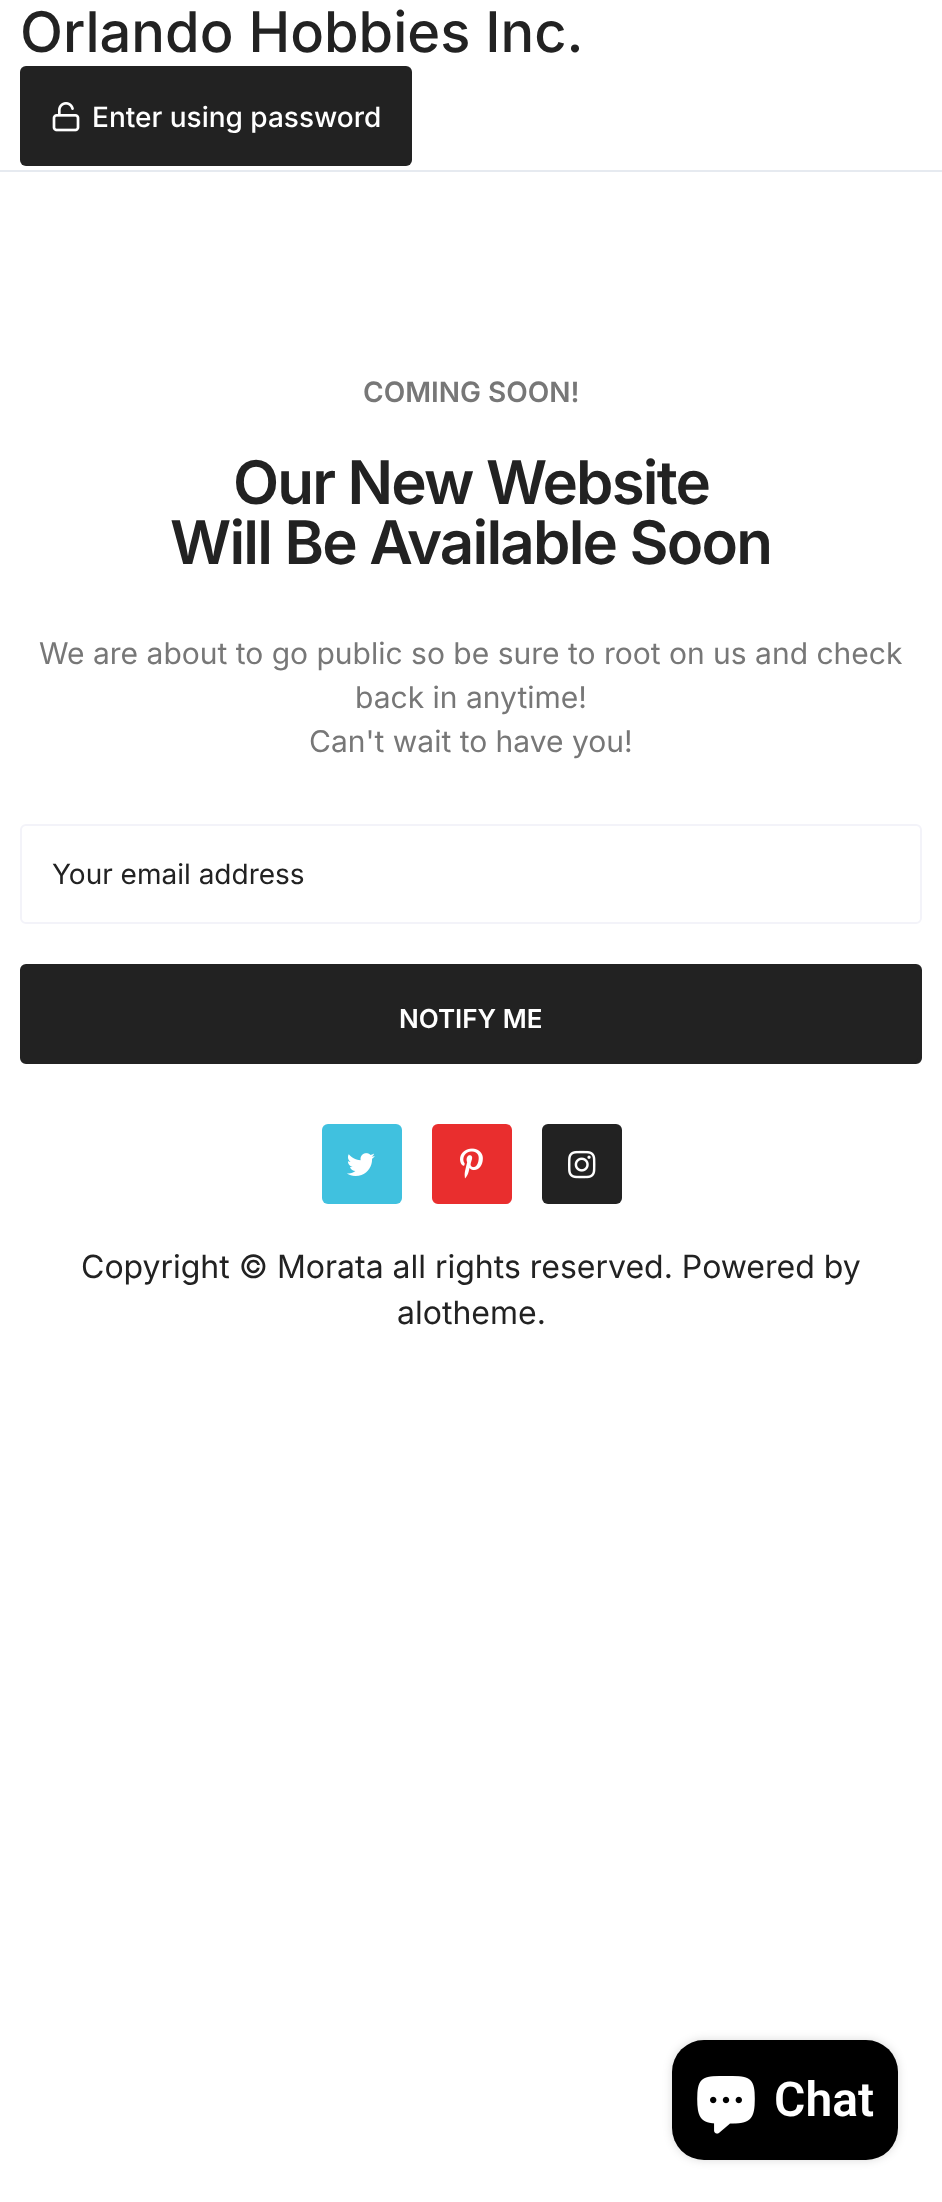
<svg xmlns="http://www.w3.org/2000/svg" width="942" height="2202">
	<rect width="100%" height="100%" fill="#FFFFFF" />
	<rect x="0" y="170" width="942" height="2" fill="#E6EAF0" />
	<text x="20" y="52" font-family="Inter" font-size="56" font-weight="500" fill="#222222">Orlando Hobbies Inc.</text>
	<rect x="20" y="66" width="392" height="100" rx="6" fill="#222222" />
	<image x="52" y="102" width="28" height="30" href="assets/img1.png" />
	<text x="92" y="127" font-family="Inter" font-size="28" font-weight="500" fill="#FFFFFF">Enter using password</text>
	<text x="363" y="402" font-family="Inter" font-size="28" font-weight="600" fill="#777777">COMING SOON!</text>
	<g font-family="Inter" font-size="60" font-weight="600" letter-spacing="-1.8" fill="#222222">
		<text x="233" y="504">Our New Website</text>
		<text x="170" y="564">Will Be Available Soon</text>
	</g>
	<g font-family="Inter" font-size="30" fill="#777777">
		<text x="39" y="664">We are about to go public so be sure to root on us and check</text>
		<text x="355" y="708">back in anytime!</text>
		<text x="309" y="752">Can't wait to have you!</text>
	</g>
	<rect x="21" y="825" width="900" height="98" rx="5" fill="none" stroke="#F3F3F9" stroke-width="2" />
	<text x="52" y="884" font-family="Inter" font-size="28" fill="#222222">Your email address</text>
	<rect x="22" y="966" width="898" height="96" rx="4" fill="#222222" stroke="#222222" stroke-width="4" />
	<text x="399" y="1028" font-family="Inter" font-size="26" font-weight="600" fill="#FFFFFF">NOTIFY ME</text>
	<rect x="322" y="1124" width="80" height="80" rx="6" fill="#40C1DF" />
	<image x="347" y="1153" width="28" height="23" href="assets/img2.png" />
	<rect x="432" y="1124" width="80" height="80" rx="6" fill="#E92E2E" />
	<image x="460" y="1148" width="23" height="31" href="assets/img3.png" />
	<rect x="542" y="1124" width="80" height="80" rx="6" fill="#222222" />
	<image x="568" y="1150" width="28" height="29" href="assets/img4.png" />
	<g font-family="Inter" font-size="32" fill="#222222">
		<text x="81" y="1278">Copyright © Morata all rights reserved. Powered by</text>
		<text x="397" y="1324">alotheme.</text>
	</g>
	<rect x="672" y="2040" width="226" height="120" rx="32" fill="#000000" fill-opacity="0.15" filter="blur(5px)" />
	<rect x="672" y="2040" width="226" height="120" rx="32" fill="#000000" />
	<image x="697" y="2076" width="58" height="58" href="assets/img5.png" />
	<text x="774" y="2116" font-family="Roboto" font-size="48" font-weight="600" fill="#FFFFFF">Chat</text>
</svg>
